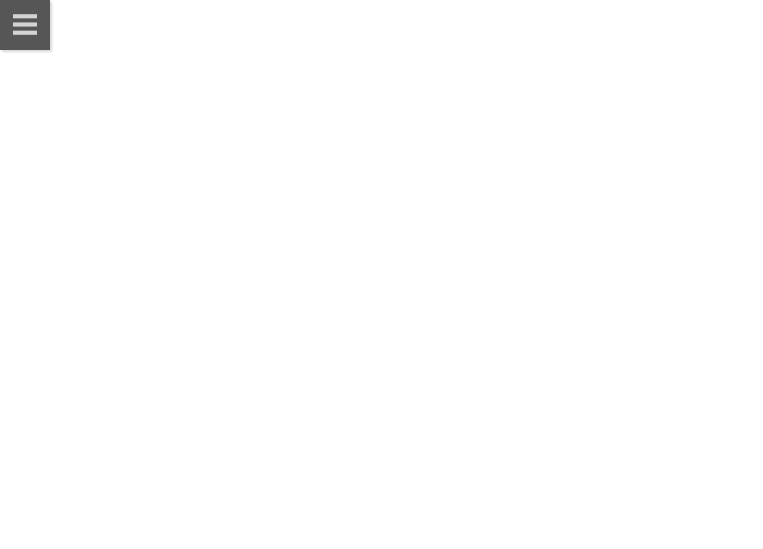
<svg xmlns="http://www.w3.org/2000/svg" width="763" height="549">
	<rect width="100%" height="100%" fill="#FFFFFF" />
	<rect x="2" y="2" width="50" height="50" fill="#D9D9D9" filter="blur(1px)" />
	<rect x="0" y="0" width="50" height="50" fill="#565656" />
	<image x="13" y="14" width="24" height="21" href="assets/img1.png" />
</svg>
